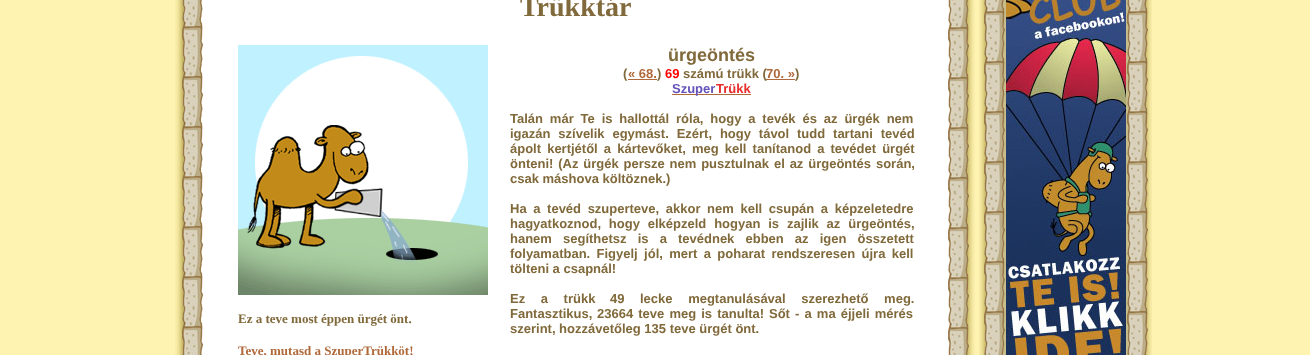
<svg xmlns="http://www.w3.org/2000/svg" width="1310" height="355">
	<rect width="100%" height="100%" fill="#FFF3B1" />
	<image x="175" y="0" width="29" height="355" href="assets/img1.png" />
	<rect x="204" y="0" width="743" height="355" fill="#FFFFFF" />
	<text x="520" y="16" font-family="Liberation Serif" font-size="28" font-weight="700" fill="#80693A">Trükktár</text>
	<image x="238" y="45" width="250" height="250" href="assets/img2.png" />
	<text x="238" y="323" font-family="Liberation Serif" font-size="13" font-weight="700" fill="#80693A">Ez a teve most éppen ürgét önt.</text>
	<text x="238" y="355" font-family="Liberation Serif" font-size="13" font-weight="700" fill="#B0693A">Teve, mutasd a SzuperTrükköt!</text>
	<text x="668" y="61" font-family="Liberation Sans" font-size="18" font-weight="700" fill="#80693A">ürgeöntés</text>
	<text x="623" y="78" font-family="Liberation Sans" font-size="13" font-weight="700" fill="#80693A">(</text>
	<text x="628" y="78" font-family="Liberation Sans" font-size="13" font-weight="700" fill="#B0693A">« 68.</text>
	<rect x="628" y="79" width="29" height="1" fill="#B0693A" />
	<text x="657" y="78" font-family="Liberation Sans" font-size="13" font-weight="700" fill="#80693A">)</text>
	<text x="665" y="78" font-family="Liberation Sans" font-size="13" font-weight="700" fill="#FF0000">69</text>
	<text x="683" y="78" font-family="Liberation Sans" font-size="13" font-weight="700" fill="#80693A">számú trükk (</text>
	<text x="766" y="78" font-family="Liberation Sans" font-size="13" font-weight="700" fill="#B0693A">70. »</text>
	<rect x="766" y="79" width="29" height="1" fill="#B0693A" />
	<text x="795" y="78" font-family="Liberation Sans" font-size="13" font-weight="700" fill="#80693A">)</text>
	<rect x="672" y="94" width="79" height="1" fill="#B0693A" />
	<text x="672" y="93" font-family="Liberation Sans" font-size="13" font-weight="700" fill="#6553BA">Szuper</text>
	<text x="716" y="93" font-family="Liberation Sans" font-size="13" font-weight="700" fill="#E72C2B">Trükk</text>
	<g font-family="Liberation Sans" font-size="13" font-weight="700" fill="#80693A">
		<text x="510" y="123" word-spacing="3.25">Talán már Te is hallottál róla, hogy a tevék és az ürgék nem</text>
		<text x="510" y="138" word-spacing="4.25">igazán szívelik egymást. Ezért, hogy távol tudd tartani tevéd</text>
		<text x="510" y="153" word-spacing="2.5">ápolt kertjétől a kártevőket, meg kell tanítanod a tevédet ürgét</text>
		<text x="510" y="168" word-spacing="1.25">önteni! (Az ürgék persze nem pusztulnak el az ürgeöntés során,</text>
		<text x="510" y="183">csak máshova költöznek.)</text>
		<text x="510" y="213" word-spacing="3">Ha a tevéd szuperteve, akkor nem kell csupán a képzeletedre</text>
		<text x="510" y="228" word-spacing="4.25">hagyatkoznod, hogy elképzeld hogyan is zajlik az ürgeöntés,</text>
		<text x="510" y="243" word-spacing="7.5">hanem segíthetsz is a tevédnek ebben az igen összetett</text>
		<text x="510" y="258" word-spacing="2.75">folyamatban. Figyelj jól, mert a poharat rendszeresen újra kell</text>
		<text x="510" y="273">tölteni a csapnál!</text>
		<text x="510" y="303" word-spacing="12">Ez a trükk</text>
		<text x="610" y="303">49</text>
		<text x="640" y="303" word-spacing="12">lecke megtanulásával szerezhető meg.</text>
		<text x="510" y="318">Fantasztikus,</text>
		<text x="597" y="318" word-spacing="1.5">23664 teve meg is tanulta!</text>
		<text x="769" y="318" word-spacing="1.5">Sőt - a ma éjjeli mérés</text>
		<text x="510" y="333">szerint, hozzávetőleg 135 teve ürgét önt.</text>
	</g>
	<image x="947" y="0" width="28" height="355" href="assets/img3.png" />
	<image x="979" y="0" width="173" height="355" href="assets/img4.png" />
	<image x="1006" y="0" width="120" height="355" href="assets/img5.png" />
</svg>
